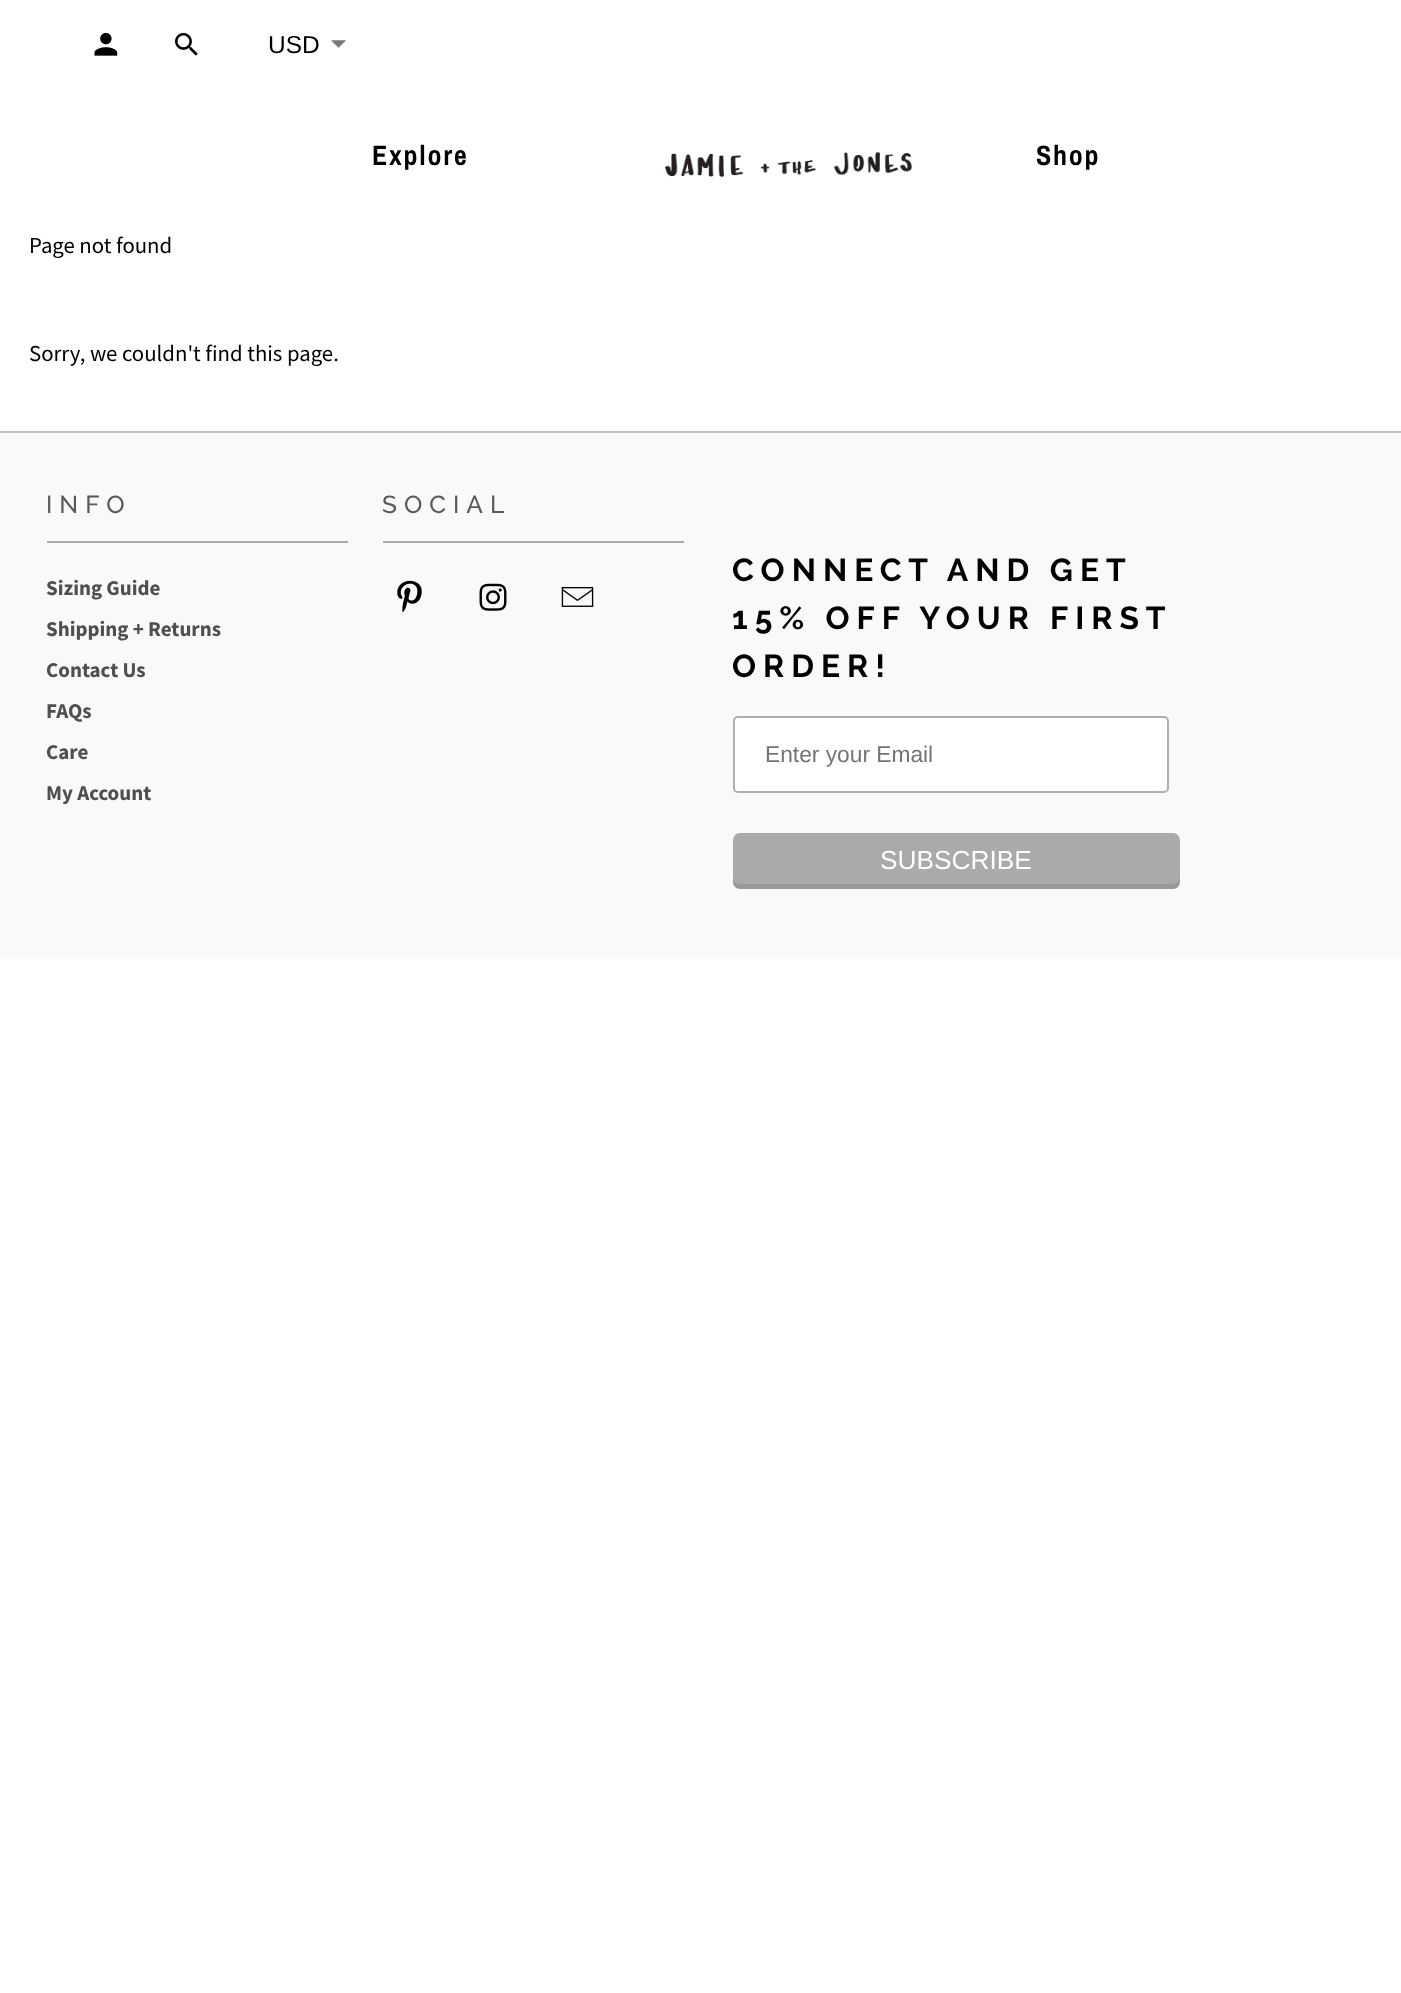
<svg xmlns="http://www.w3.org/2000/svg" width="1401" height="1993">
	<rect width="100%" height="100%" fill="#FFFFFF" />
	<image x="94" y="32" width="24" height="24" href="assets/img1.png" />
	<image x="175" y="32" width="23" height="24" href="assets/img2.png" />
	<image x="330" y="40" width="17" height="9" href="assets/img3.png" />
	<text x="268" y="53" font-family="Liberation Sans" font-size="24.5" fill="#000000">USD</text>
	<text x="372" y="165" font-family="Archivo Narrow" font-size="28" font-weight="700" letter-spacing="1.75" fill="#000000">Explore</text>
	<image x="665" y="152" width="247" height="25" href="assets/img4.png" />
	<text x="1036" y="165" font-family="Archivo Narrow" font-size="28" font-weight="700" letter-spacing="1.75" fill="#000000">Shop</text>
	<g font-family="Source Sans Pro" font-size="22.75" fill="#000000">
		<text x="29" y="253">Page not found</text>
		<text x="29" y="361">Sorry, we couldn't find this page.</text>
	</g>
	<rect x="0" y="433" width="1401" height="526" fill="#F9F9F9" />
	<rect x="0" y="431" width="1401" height="2" fill="#C2C2C2" />
	<rect x="47" y="541" width="301" height="2" fill="#AAAAAA" />
	<text x="46" y="513" font-family="Raleway" font-size="24.5" font-weight="500" letter-spacing="7" fill="#595959">INFO</text>
	<g font-family="Source Sans Pro" font-size="21" font-weight="700" fill="#4F4F4F">
		<text x="46" y="595">Sizing Guide</text>
		<text x="46" y="636">Shipping + Returns</text>
		<text x="46" y="677">Contact Us</text>
		<text x="46" y="718">FAQs</text>
		<text x="46" y="759">Care</text>
		<text x="46" y="800">My Account</text>
	</g>
	<rect x="383" y="541" width="301" height="2" fill="#AAAAAA" />
	<text x="382" y="513" font-family="Raleway" font-size="24.5" font-weight="500" letter-spacing="7" fill="#595959">SOCIAL</text>
	<image x="397" y="580" width="25" height="33" href="assets/img5.png" />
	<image x="479" y="583" width="28" height="28" href="assets/img6.png" />
	<image x="561" y="587" width="33" height="20" href="assets/img7.png" />
	<g font-family="Raleway" font-size="31.8" font-weight="700" letter-spacing="7" fill="#000000">
		<text x="732" y="581" word-spacing="-1">CONNECT AND GET</text>
		<text x="732" y="629" word-spacing="-0.5">15% OFF YOUR FIRST</text>
		<text x="732" y="677">ORDER!</text>
	</g>
	<rect x="734" y="717" width="434" height="75" rx="4" fill="#FFFFFF" stroke="#ABB0B2" stroke-width="2" />
	<text x="765" y="762" font-family="Liberation Sans" font-size="22.75" fill="#757575">Enter your Email</text>
	<rect x="733" y="833" width="447" height="56" rx="7" fill="#AAAAAA" />
	<path d="M733 877C733 882 733 889 740 889H1173C1180 889 1180 882 1180 877C1180 881 1176 884 1172 884H740C736 884 733 881 733 877Z" fill="#000000" fill-opacity="0.1" />
	<text x="880" y="869" font-family="Liberation Sans" font-size="26.25" fill="#FFFFFF">SUBSCRIBE</text>
</svg>
